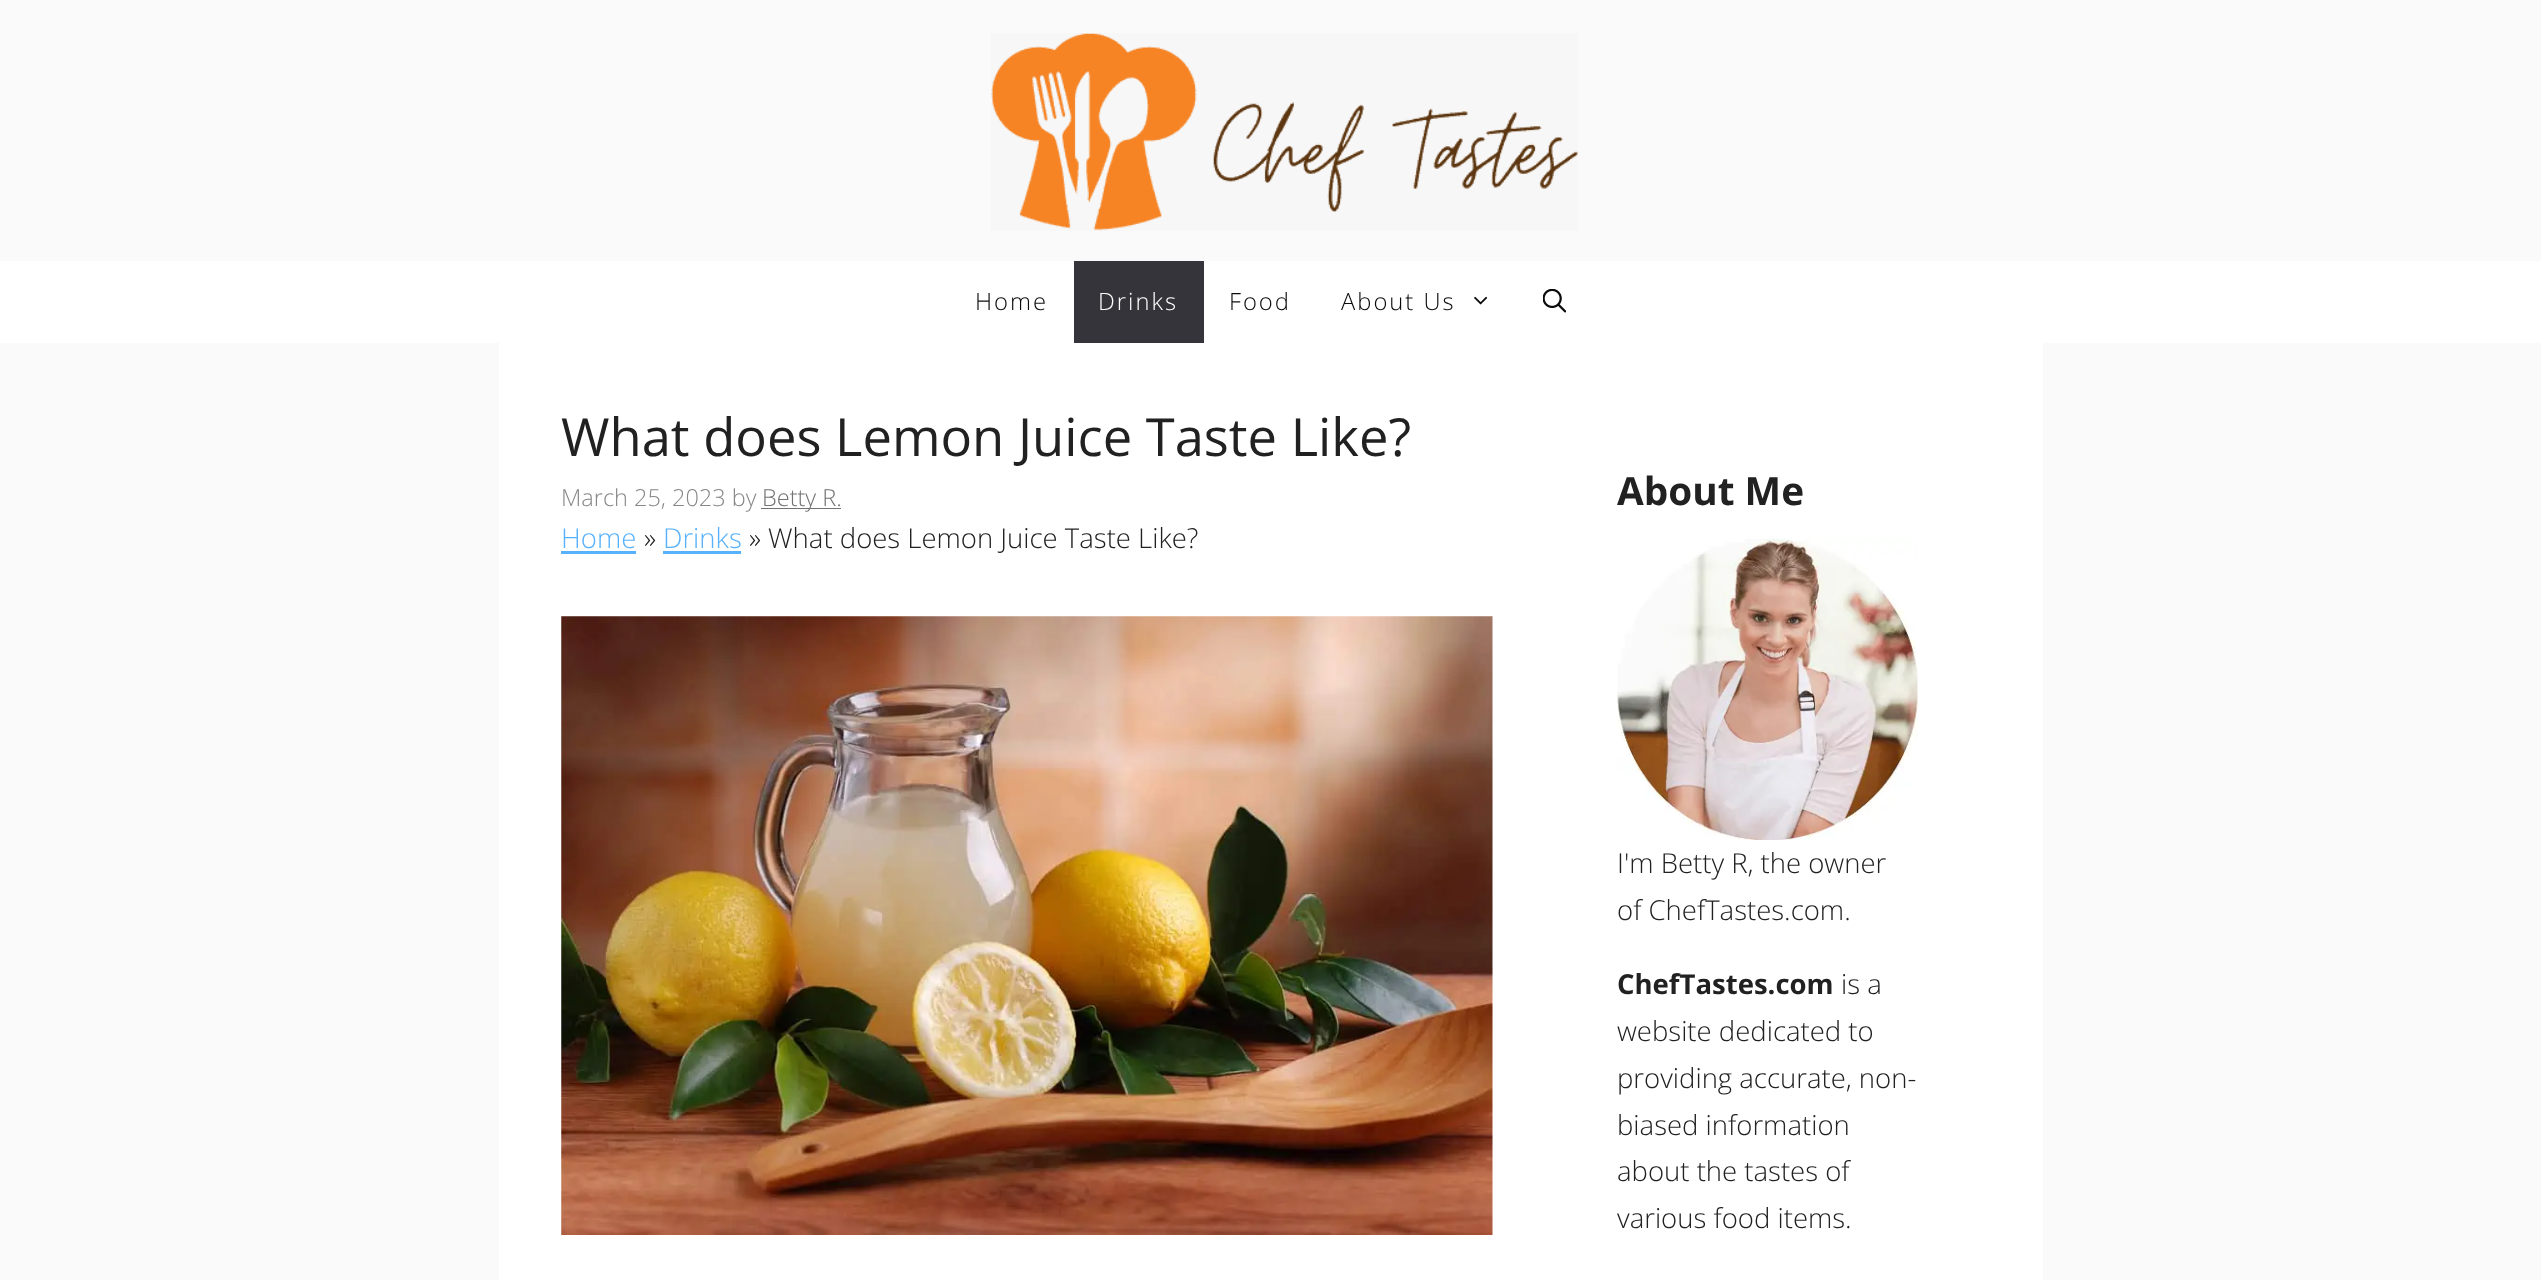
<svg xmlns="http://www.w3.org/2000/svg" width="2541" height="1280">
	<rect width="100%" height="100%" fill="#FAFAFA" />
	<image x="991" y="33" width="587" height="198" href="assets/img1.png" />
	<rect x="0" y="261" width="2541" height="82" fill="#FFFFFF" />
	<text x="975" y="310" font-family="Open Sans" font-size="23.75" font-weight="300" letter-spacing="2" fill="#0A0A0A">Home</text>
	<rect x="1074" y="261" width="130" height="82" fill="#35343A" />
	<text x="1098" y="310" font-family="Open Sans" font-size="23.75" font-weight="300" letter-spacing="2" fill="#FFFFFF">Drinks</text>
	<g font-family="Open Sans" font-size="23.75" font-weight="300" letter-spacing="2" fill="#0A0A0A">
		<text x="1229" y="310">Food</text>
		<text x="1341" y="310">About Us</text>
	</g>
	<image x="1474" y="296" width="14" height="9" href="assets/img2.png" />
	<image x="1543" y="289" width="23" height="24" href="assets/img3.png" />
	<rect x="499" y="343" width="1544" height="937" fill="#FFFFFF" />
	<text x="561" y="456" font-family="Open Sans" font-size="52.5" fill="#212121">What does Lemon Juice Taste Like?</text>
	<text x="561" y="506" font-family="Open Sans" font-size="23.5" font-weight="300" fill="#878787">March 25, 2023 by</text>
	<rect x="761" y="508" width="80" height="1" fill="#727272" />
	<text x="762" y="506" font-family="Open Sans" font-size="23.5" font-weight="300" fill="#727272">Betty R.</text>
	<text x="561" y="548" font-family="Open Sans" font-size="27.5" font-weight="300" fill="#57B2FB">Home</text>
	<rect x="561" y="551" width="75" height="3" fill="#57B2FB" />
	<text x="644" y="548" font-family="Open Sans" font-size="27.5" font-weight="300" fill="#212121">»</text>
	<text x="663" y="548" font-family="Open Sans" font-size="27.5" font-weight="300" fill="#57B2FB">Drinks</text>
	<rect x="663" y="551" width="78" height="3" fill="#57B2FB" />
	<text x="749" y="548" font-family="Open Sans" font-size="27.5" font-weight="300" fill="#212121">» What does Lemon Juice Taste Like?</text>
	<image x="561" y="616" width="932" height="619" href="assets/img4.png" />
	<text x="1617" y="505" font-family="Open Sans" font-size="38.75" font-weight="700" fill="#212121">About Me</text>
	<image x="1617" y="538" width="301" height="302" href="assets/img5.png" />
	<g font-family="Open Sans" font-size="27.5" font-weight="300" fill="#212121">
		<text x="1617" y="873">I'm Betty R, the owner</text>
		<text x="1617" y="920">of ChefTastes.com.</text>
	</g>
	<text x="1617" y="994" font-family="Open Sans" font-size="27.5" font-weight="700" fill="#212121">ChefTastes.com</text>
	<g font-family="Open Sans" font-size="27.5" font-weight="300" fill="#212121">
		<text x="1841" y="994">is a</text>
		<text x="1617" y="1041">website dedicated to</text>
		<text x="1617" y="1088">providing accurate, non-</text>
		<text x="1617" y="1135">biased information</text>
		<text x="1617" y="1181">about the tastes of</text>
		<text x="1617" y="1228">various food items.</text>
	</g>
</svg>
